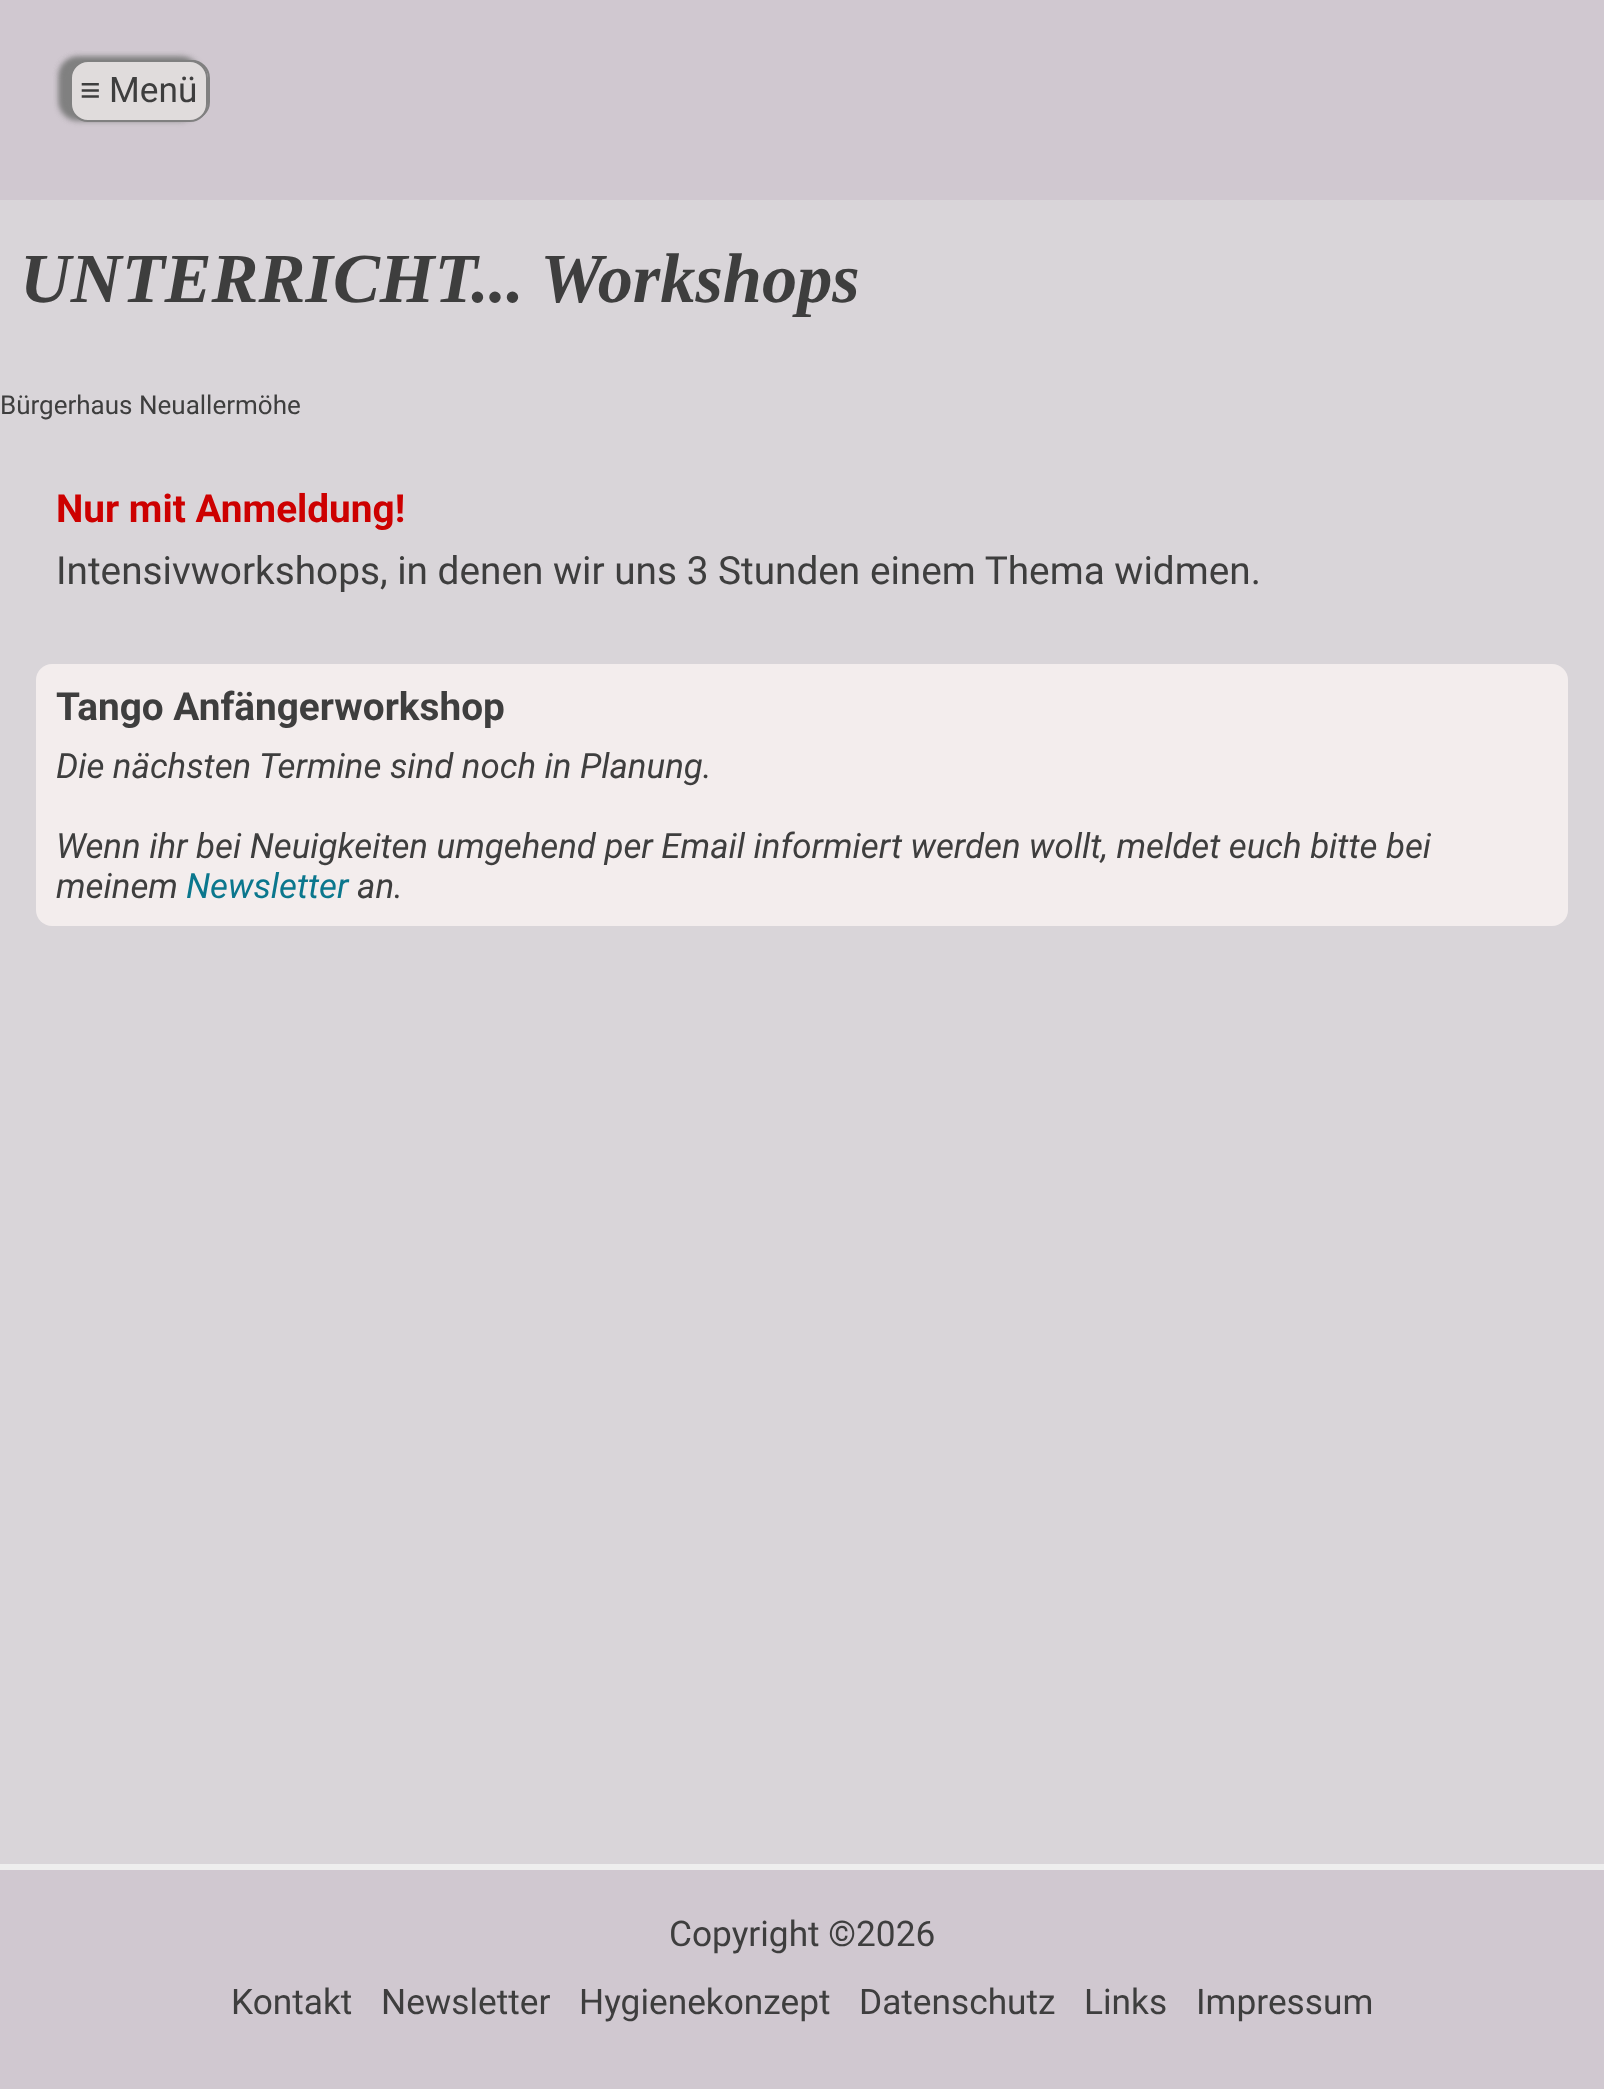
<svg xmlns="http://www.w3.org/2000/svg" width="1604" height="2089">
	<rect width="100%" height="100%" fill="#D9D5D9" />
	<rect x="0" y="0" width="1604" height="200" fill="#D0C8D0" />
	<rect x="60" y="58" width="140" height="60" rx="18" fill="#808080" filter="blur(3px)" />
	<rect x="71" y="61" width="138" height="58" rx="17" fill="none" stroke="#808080" stroke-width="2" />
	<rect x="60" y="58" width="138" height="62" rx="18" fill="#808080" filter="blur(3px)" />
	<rect x="71" y="61" width="136" height="60" rx="17" fill="#E0DCDC" stroke="#808080" stroke-width="2" />
	<text x="80" y="102" font-family="Liberation Sans" font-size="35.25" fill="#3E3E3E">≡</text>
	<text x="109" y="102" font-family="Roboto" font-size="35.25" fill="#3E3E3E">Menü</text>
	<text x="20" y="302" font-family="Liberation Serif" font-size="70.4" font-weight="700" font-style="italic" fill="#3E3E3E">UNTERRICHT... Workshops</text>
	<text x="0" y="414" font-family="Roboto" font-size="26" fill="#3E3E3E">Bürgerhaus Neuallermöhe</text>
	<text x="56" y="522" font-family="Roboto" font-size="38.75" font-weight="700" fill="#CD0000">Nur mit Anmeldung!</text>
	<text x="56" y="584" font-family="Roboto" font-size="38.75" fill="#3E3E3E">Intensivworkshops, in denen wir uns 3 Stunden einem Thema widmen.</text>
	<rect x="36" y="664" width="1532" height="262" rx="16" fill="#F3EDED" />
	<text x="56" y="720" font-family="Roboto" font-size="38.75" font-weight="700" fill="#3E3E3E">Tango Anfängerworkshop</text>
	<g font-family="Roboto" font-size="34.85" font-style="italic" fill="#3E3E3E">
		<text x="56" y="778">Die nächsten Termine sind noch in Planung.</text>
		<text x="56" y="858">Wenn ihr bei Neuigkeiten umgehend per Email informiert werden wollt, meldet euch bitte bei</text>
		<text x="56" y="898">meinem</text>
	</g>
	<text x="186" y="898" font-family="Roboto" font-size="34.85" font-style="italic" fill="#0B778D">Newsletter</text>
	<text x="357" y="898" font-family="Roboto" font-size="34.85" font-style="italic" fill="#3E3E3E">an.</text>
	<rect x="0" y="1870" width="1604" height="219" fill="#D0C8D0" />
	<rect x="0" y="1864" width="1604" height="6" fill="#EEEEEE" />
	<g font-family="Roboto" font-size="35.25" fill="#3E3E3E">
		<text x="669" y="1946">Copyright ©2026</text>
		<text x="231" y="2014">Kontakt</text>
		<text x="381" y="2014">Newsletter</text>
		<text x="579" y="2014">Hygienekonzept</text>
		<text x="859" y="2014">Datenschutz</text>
		<text x="1084" y="2014">Links</text>
		<text x="1196" y="2014">Impressum</text>
	</g>
</svg>
